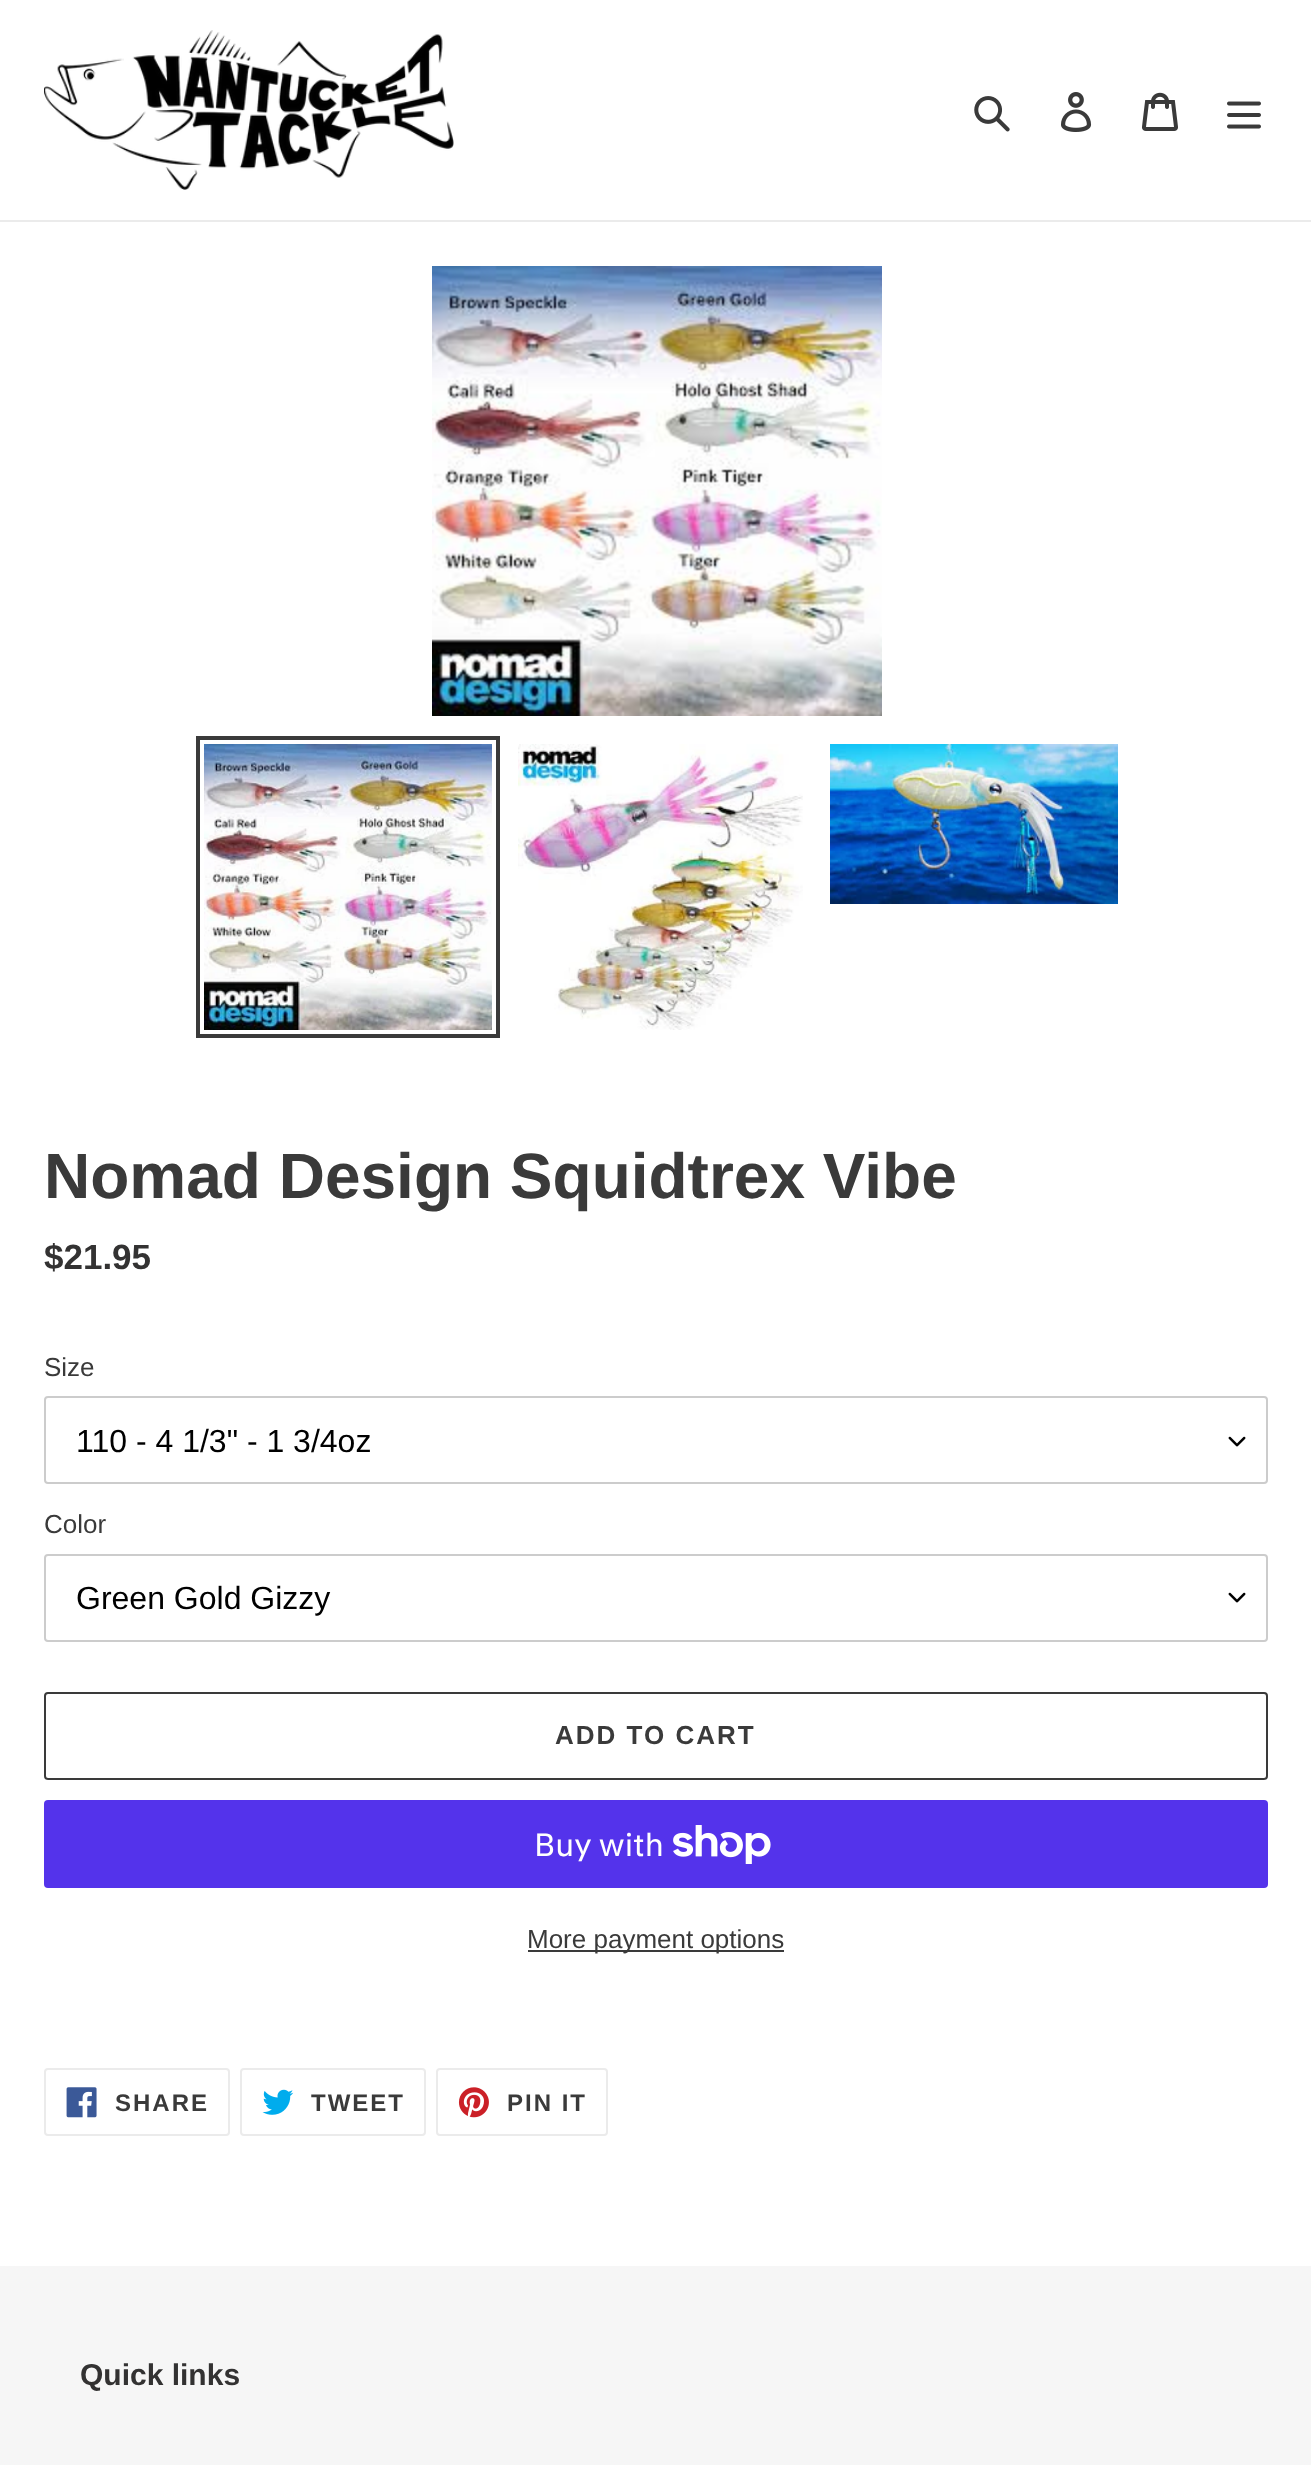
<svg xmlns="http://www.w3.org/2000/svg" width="1311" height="2465">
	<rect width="100%" height="100%" fill="#FFFFFF" />
	<rect x="0" y="220" width="1311" height="2" fill="#EBEBEB" />
	<image x="44" y="30" width="410" height="160" href="assets/img1.png" />
	<image x="974" y="96" width="36" height="36" href="assets/img2.png" />
	<image x="1061" y="92" width="31" height="40" href="assets/img3.png" />
	<image x="1142" y="92" width="36" height="39" href="assets/img4.png" />
	<image x="1227" y="101" width="34" height="28" href="assets/img5.png" />
	<image x="432" y="266" width="450" height="450" href="assets/img6.png" />
	<rect x="198" y="738" width="300" height="298" fill="none" stroke="#3A3A3A" stroke-width="4" />
	<image x="204" y="744" width="288" height="286" href="assets/img7.png" />
	<image x="518" y="744" width="285" height="286" href="assets/img8.png" />
	<image x="830" y="744" width="288" height="160" href="assets/img9.png" />
	<text x="44" y="1198" font-family="Liberation Sans" font-size="64" font-weight="700" fill="#3A3A3A">Nomad Design Squidtrex Vibe</text>
	<text x="44" y="1269" font-family="Liberation Sans" font-size="35" font-weight="700" fill="#333232">$21.95</text>
	<text x="44" y="1376" font-family="Liberation Sans" font-size="26" fill="#3A3A3A">Size</text>
	<image x="1228" y="1436" width="18" height="11" href="assets/img10.png" />
	<rect x="45" y="1397" width="1222" height="86" rx="3" fill="none" stroke="#CCCCCC" stroke-width="2" />
	<text x="76" y="1452" font-family="Liberation Sans" font-size="32" fill="#000000">110 - 4 1/3" - 1 3/4oz</text>
	<text x="44" y="1533" font-family="Liberation Sans" font-size="26" fill="#3A3A3A">Color</text>
	<image x="1228" y="1592" width="18" height="11" href="assets/img10.png" />
	<rect x="45" y="1555" width="1222" height="86" rx="3" fill="none" stroke="#CCCCCC" stroke-width="2" />
	<text x="76" y="1609" font-family="Liberation Sans" font-size="32" fill="#000000">Green Gold Gizzy</text>
	<rect x="45" y="1693" width="1222" height="86" rx="3" fill="none" stroke="#3A3A3A" stroke-width="2" />
	<text x="555" y="1744" font-family="Liberation Sans" font-size="26" font-weight="700" letter-spacing="2" fill="#3A3A3A">ADD TO CART</text>
	<rect x="44" y="1800" width="1224" height="88" rx="4" fill="#5433EB" />
	<text x="534" y="1856" font-family="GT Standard" font-size="32" fill="#FFFFFF">Buy with</text>
	<image x="673" y="1825" width="98" height="39" href="assets/img11.png" />
	<rect x="528" y="1950" width="256" height="2" fill="#3A3A3A" />
	<text x="527" y="1948" font-family="Liberation Sans" font-size="26" fill="#3A3A3A">More payment options</text>
	<rect x="45" y="2069" width="184" height="66" rx="3" fill="none" stroke="#EBEBEB" stroke-width="2" />
	<image x="66" y="2087" width="31" height="31" href="assets/img12.png" />
	<text x="115" y="2111" font-family="Liberation Sans" font-size="24" font-weight="700" letter-spacing="2" fill="#3A3A3A">SHARE</text>
	<rect x="241" y="2069" width="184" height="66" rx="3" fill="none" stroke="#EBEBEB" stroke-width="2" />
	<image x="262" y="2089" width="32" height="26" href="assets/img13.png" />
	<text x="311" y="2111" font-family="Liberation Sans" font-size="24" font-weight="700" letter-spacing="2" fill="#3A3A3A">TWEET</text>
	<rect x="437" y="2069" width="170" height="66" rx="3" fill="none" stroke="#EBEBEB" stroke-width="2" />
	<image x="458" y="2087" width="31" height="31" href="assets/img14.png" />
	<text x="507" y="2111" font-family="Liberation Sans" font-size="24" font-weight="700" letter-spacing="2" fill="#3A3A3A">PIN IT</text>
	<rect x="0" y="2266" width="1311" height="199" fill="#F6F6F6" />
	<text x="80" y="2385" font-family="Liberation Sans" font-size="30" font-weight="700" fill="#333232">Quick links</text>
</svg>
